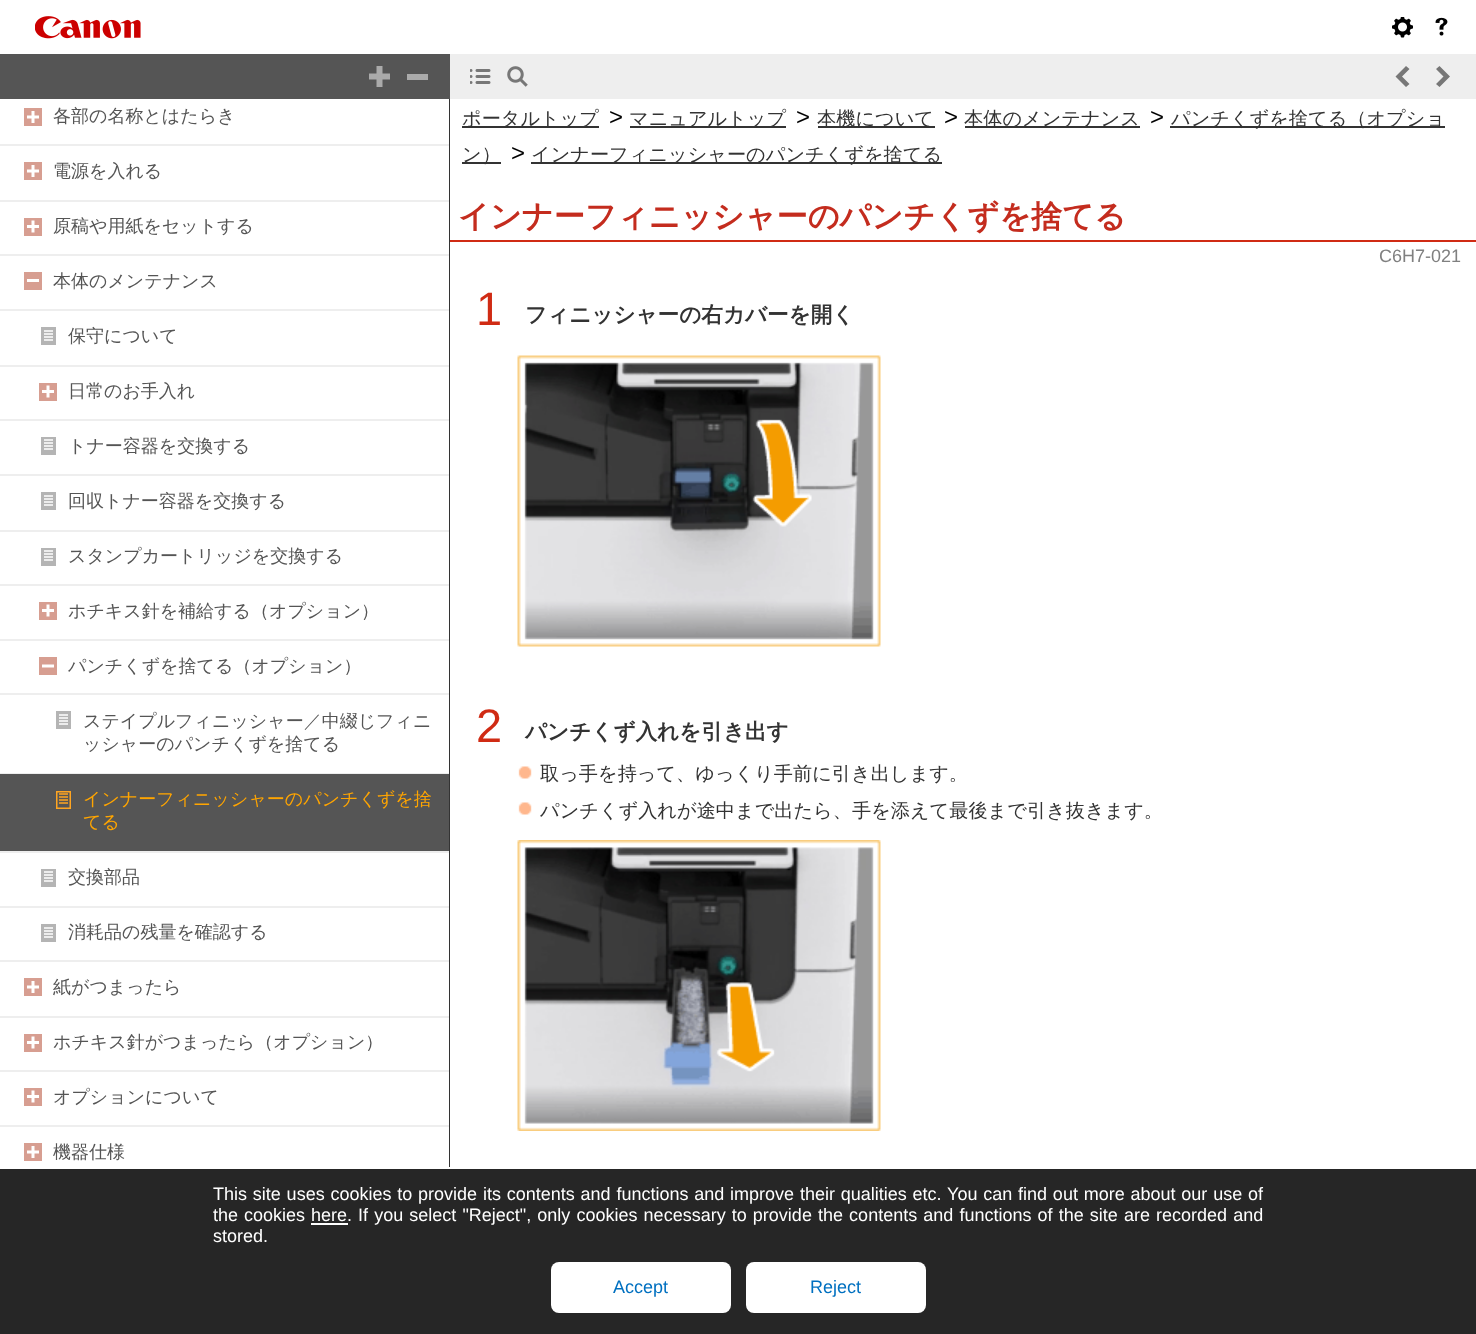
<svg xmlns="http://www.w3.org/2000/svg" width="1476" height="1334">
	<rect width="100%" height="100%" fill="#FFFFFF" />
	<image x="35" y="16" width="106" height="23" href="assets/img1.png" />
	<image x="1392" y="17" width="21" height="21" href="assets/img2.png" />
	<image x="1435" y="17" width="13" height="19" href="assets/img3.png" />
	<rect x="0" y="54" width="450" height="45" fill="#555555" />
	<image x="369" y="66" width="21" height="21" href="assets/img4.png" />
	<rect x="407" y="74" width="21" height="6" fill="#AAAAAA" />
	<rect x="450" y="54" width="1026" height="45" fill="#EEEEEE" />
	<image x="470" y="69" width="21" height="15" href="assets/img5.png" />
	<image x="507" y="66" width="21" height="21" href="assets/img6.png" />
	<path d="M1409.5 84L1402 76.5L1409.5 69L1406 66L1395.5 76.5L1406 87ZM1436 69L1443.5 76.5L1436 84L1439.5 87L1450 76.5L1439.5 66Z" fill="#777777" />
	<rect x="449" y="99" width="1" height="1068" fill="#333333" />
	<rect x="0" y="144" width="449" height="2" fill="#EEEEEE" />
	<rect x="24" y="108" width="18" height="18" fill="#D79E91" />
	<path d="M33 111V123M27 117H39" fill="none" stroke="#FFFFFF" stroke-width="3" />
	<text x="53" y="122" font-family="WenQuanYi Zen Hei" font-size="18" font-weight="500" fill="#555555">各部の名称とはたらき</text>
	<rect x="0" y="200" width="449" height="2" fill="#EEEEEE" />
	<rect x="24" y="162" width="18" height="18" fill="#D79E91" />
	<path d="M33 165V177M27 171H39" fill="none" stroke="#FFFFFF" stroke-width="3" />
	<text x="53" y="177" font-family="WenQuanYi Zen Hei" font-size="18" font-weight="500" fill="#555555">電源を入れる</text>
	<rect x="0" y="254" width="449" height="2" fill="#EEEEEE" />
	<rect x="24" y="218" width="18" height="18" fill="#D79E91" />
	<path d="M33 220.5V232.5" fill="none" stroke="#FFFFFF" stroke-width="3" />
	<rect x="27" y="225" width="12" height="3" fill="#FFFFFF" />
	<text x="53" y="232" font-family="WenQuanYi Zen Hei" font-size="18" font-weight="500" fill="#555555">原稿や用紙をセットする</text>
	<rect x="0" y="309" width="449" height="2" fill="#EEEEEE" />
	<rect x="24" y="272" width="18" height="18" fill="#D79E91" />
	<rect x="27" y="279" width="12" height="3" fill="#FFFFFF" />
	<text x="53" y="287" font-family="WenQuanYi Zen Hei" font-size="18" font-weight="500" fill="#555555">本体のメンテナンス</text>
	<rect x="0" y="365" width="449" height="2" fill="#EEEEEE" />
	<image x="41" y="327" width="15" height="18" href="assets/img7.png" />
	<text x="68" y="342" font-family="WenQuanYi Zen Hei" font-size="18" font-weight="500" fill="#555555">保守について</text>
	<rect x="0" y="419" width="449" height="2" fill="#EEEEEE" />
	<rect x="39" y="383" width="18" height="18" fill="#D79E91" />
	<path d="M48 385.5V397.5" fill="none" stroke="#FFFFFF" stroke-width="3" />
	<rect x="42" y="390" width="12" height="3" fill="#FFFFFF" />
	<text x="68" y="397" font-family="WenQuanYi Zen Hei" font-size="18" font-weight="500" fill="#555555">日常のお手入れ</text>
	<rect x="0" y="474" width="449" height="2" fill="#EEEEEE" />
	<image x="41" y="437" width="15" height="18" href="assets/img8.png" />
	<text x="68" y="452" font-family="WenQuanYi Zen Hei" font-size="18" font-weight="500" fill="#555555">トナー容器を交換する</text>
	<rect x="0" y="530" width="449" height="2" fill="#EEEEEE" />
	<image x="41" y="492" width="15" height="18" href="assets/img7.png" />
	<text x="68" y="507" font-family="WenQuanYi Zen Hei" font-size="18" font-weight="500" fill="#555555">回収トナー容器を交換する</text>
	<rect x="0" y="584" width="449" height="2" fill="#EEEEEE" />
	<image x="41" y="548" width="15" height="18" href="assets/img8.png" />
	<text x="68" y="562" font-family="WenQuanYi Zen Hei" font-size="18" font-weight="500" fill="#555555">スタンプカートリッジを交換する</text>
	<rect x="0" y="639" width="449" height="2" fill="#EEEEEE" />
	<rect x="39" y="602" width="18" height="18" fill="#D79E91" />
	<path d="M48 604.5V616.5" fill="none" stroke="#FFFFFF" stroke-width="3" />
	<rect x="42" y="609" width="12" height="3" fill="#FFFFFF" />
	<text x="68" y="617" font-family="WenQuanYi Zen Hei" font-size="18" font-weight="500" fill="#555555">ホチキス針を補給する（オプション）</text>
	<rect x="0" y="693" width="449" height="2" fill="#EEEEEE" />
	<rect x="39" y="657" width="18" height="18" fill="#D79E91" />
	<path d="M42 666H54" fill="none" stroke="#FFFFFF" stroke-width="3" />
	<text x="68" y="672" font-family="WenQuanYi Zen Hei" font-size="18" font-weight="500" fill="#555555">パンチくずを捨てる（オプション）</text>
	<rect x="0" y="773" width="449" height="1" fill="#EEEEEE" />
	<image x="56" y="711" width="15" height="18" href="assets/img7.png" />
	<g font-family="WenQuanYi Zen Hei" font-size="18" font-weight="500" fill="#555555">
		<text x="83" y="727">ステイプルフィニッシャー／中綴じフィニ</text>
		<text x="83" y="750">ッシャーのパンチくずを捨てる</text>
	</g>
	<rect x="0" y="774" width="449" height="77" fill="#555555" />
	<rect x="0" y="851" width="449" height="2" fill="#EEEEEE" />
	<image x="56" y="791" width="15" height="18" href="assets/img9.png" />
	<g font-family="WenQuanYi Zen Hei" font-size="18" font-weight="500" fill="#FFA500">
		<text x="83" y="805">インナーフィニッシャーのパンチくずを捨</text>
		<text x="83" y="828">てる</text>
	</g>
	<rect x="0" y="906" width="449" height="2" fill="#EEEEEE" />
	<image x="41" y="869" width="15" height="18" href="assets/img8.png" />
	<text x="68" y="883" font-family="WenQuanYi Zen Hei" font-size="18" font-weight="500" fill="#555555">交換部品</text>
	<rect x="0" y="960" width="449" height="2" fill="#EEEEEE" />
	<image x="41" y="924" width="15" height="18" href="assets/img7.png" />
	<text x="68" y="938" font-family="WenQuanYi Zen Hei" font-size="18" font-weight="500" fill="#555555">消耗品の残量を確認する</text>
	<rect x="0" y="1016" width="449" height="2" fill="#EEEEEE" />
	<rect x="24" y="978" width="18" height="18" fill="#D79E91" />
	<path d="M33 981V993M27 987H39" fill="none" stroke="#FFFFFF" stroke-width="3" />
	<text x="53" y="993" font-family="WenQuanYi Zen Hei" font-size="18" font-weight="500" fill="#555555">紙がつまったら</text>
	<rect x="0" y="1070" width="449" height="2" fill="#EEEEEE" />
	<rect x="24" y="1034" width="18" height="18" fill="#D79E91" />
	<path d="M33 1036.5V1048.5" fill="none" stroke="#FFFFFF" stroke-width="3" />
	<rect x="27" y="1041" width="12" height="3" fill="#FFFFFF" />
	<text x="53" y="1048" font-family="WenQuanYi Zen Hei" font-size="18" font-weight="500" fill="#555555">ホチキス針がつまったら（オプション）</text>
	<rect x="0" y="1125" width="449" height="2" fill="#EEEEEE" />
	<rect x="24" y="1088" width="18" height="18" fill="#D79E91" />
	<path d="M33 1090.5V1102.5" fill="none" stroke="#FFFFFF" stroke-width="3" />
	<rect x="27" y="1095" width="12" height="3" fill="#FFFFFF" />
	<text x="53" y="1103" font-family="WenQuanYi Zen Hei" font-size="18" font-weight="500" fill="#555555">オプションについて</text>
	<rect x="24" y="1143" width="18" height="18" fill="#D79E91" />
	<path d="M33 1146V1158M27 1152H39" fill="none" stroke="#FFFFFF" stroke-width="3" />
	<text x="53" y="1158" font-family="WenQuanYi Zen Hei" font-size="18" font-weight="500" fill="#555555">機器仕様</text>
	<rect x="462" y="126" width="137" height="2" fill="#333333" />
	<text x="462" y="125" font-family="WenQuanYi Zen Hei" font-size="19.2" font-weight="500" fill="#333333">ポータルトップ</text>
	<text x="609" y="125" font-family="Liberation Sans" font-size="24" fill="#000000">&gt;</text>
	<rect x="630" y="126" width="156" height="2" fill="#333333" />
	<text x="629" y="125" font-family="WenQuanYi Zen Hei" font-size="19.2" font-weight="500" fill="#333333">マニュアルトップ</text>
	<text x="796" y="125" font-family="Liberation Sans" font-size="24" fill="#000000">&gt;</text>
	<rect x="818" y="126" width="117" height="2" fill="#333333" />
	<text x="817" y="125" font-family="WenQuanYi Zen Hei" font-size="19.2" font-weight="500" fill="#333333">本機について</text>
	<text x="944" y="125" font-family="Liberation Sans" font-size="24" fill="#000000">&gt;</text>
	<rect x="965" y="126" width="175" height="2" fill="#333333" />
	<text x="964" y="125" font-family="WenQuanYi Zen Hei" font-size="19.2" font-weight="500" fill="#333333">本体のメンテナンス</text>
	<text x="1150" y="125" font-family="Liberation Sans" font-size="24" fill="#000000">&gt;</text>
	<rect x="1170" y="126" width="275" height="2" fill="#333333" />
	<text x="1171" y="125" font-family="WenQuanYi Zen Hei" font-size="19.2" font-weight="500" fill="#333333">パンチくずを捨てる（オプショ</text>
	<rect x="462" y="162" width="39" height="2" fill="#333333" />
	<text x="462" y="161" font-family="WenQuanYi Zen Hei" font-size="19.2" font-weight="500" fill="#333333">ン）</text>
	<text x="511" y="161" font-family="Liberation Sans" font-size="24" fill="#000000">&gt;</text>
	<rect x="531" y="162" width="411" height="2" fill="#333333" />
	<text x="531" y="161" font-family="WenQuanYi Zen Hei" font-size="19.2" font-weight="500" fill="#333333">インナーフィニッシャーのパンチくずを捨てる</text>
	<rect x="450" y="240" width="1026" height="2" fill="#D02B14" />
	<text x="458" y="227" font-family="WenQuanYi Zen Hei" font-size="31.2" font-weight="700" fill="#C42C1E">インナーフィニッシャーのパンチくずを捨てる</text>
	<text x="1379" y="262" font-family="Liberation Sans" font-size="18" fill="#808080">C6H7-021</text>
	<text x="476" y="325" font-family="Liberation Sans" font-size="47" fill="#D02B14">1</text>
	<text x="525" y="322" font-family="WenQuanYi Zen Hei" font-size="21.6" font-weight="700" fill="#333333">フィニッシャーの右カバーを開く</text>
	<image x="517" y="355" width="364" height="292" href="assets/img10.png" />
	<text x="476" y="742" font-family="Liberation Sans" font-size="47" fill="#D02B14">2</text>
	<text x="525" y="739" font-family="WenQuanYi Zen Hei" font-size="21.6" font-weight="700" fill="#333333">パンチくず入れを引き出す</text>
	<image x="518" y="766" width="14" height="13" href="assets/img11.png" />
	<text x="540" y="780" font-family="WenQuanYi Zen Hei" font-size="19.2" font-weight="500" fill="#333333">取っ手を持って、ゆっくり手前に引き出します。</text>
	<image x="518" y="802" width="14" height="13" href="assets/img11.png" />
	<text x="540" y="817" font-family="WenQuanYi Zen Hei" font-size="19.2" font-weight="500" fill="#333333">パンチくず入れが途中まで出たら、手を添えて最後まで引き抜きます。</text>
	<image x="517" y="840" width="364" height="291" href="assets/img12.png" />
	<rect x="0" y="1169" width="1476" height="165" fill="#262626" />
	<g font-family="Liberation Sans" font-size="18" fill="#FFFFFF">
		<text x="213" y="1200" word-spacing="0.8">This site uses cookies to provide its contents and functions and improve their qualities etc. You can find out more about our use of</text>
		<text x="213" y="1221" word-spacing="1">the cookies</text>
		<text x="311" y="1221">here</text>
	</g>
	<rect x="311" y="1223" width="37" height="2" fill="#FFFFFF" />
	<g font-family="Liberation Sans" font-size="18" fill="#FFFFFF">
		<text x="347" y="1221" word-spacing="1.1">. If you select "Reject", only cookies necessary to provide the contents and functions of the site are recorded and</text>
		<text x="213" y="1242">stored.</text>
	</g>
	<rect x="551" y="1262" width="180" height="51" rx="8" fill="#FFFFFF" />
	<text x="613" y="1293" font-family="Liberation Sans" font-size="18" fill="#0070C0">Accept</text>
	<rect x="746" y="1262" width="180" height="51" rx="8" fill="#FFFFFF" />
	<text x="810" y="1293" font-family="Liberation Sans" font-size="18" fill="#0070C0">Reject</text>
</svg>
